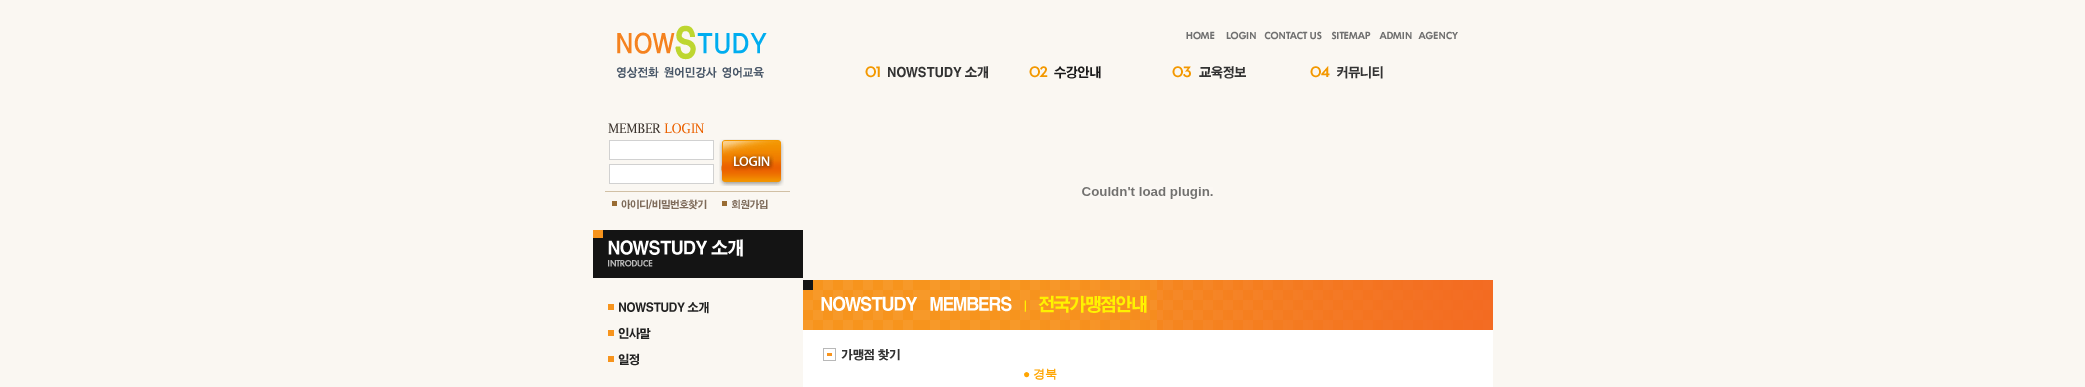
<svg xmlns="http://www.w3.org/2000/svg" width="2085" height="387">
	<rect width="100%" height="100%" fill="#FAF7F2" />
	<image x="616" y="25" width="151" height="53" href="assets/img1.png" />
	<image x="1186" y="31" width="29" height="9" href="assets/img2.png" />
	<image x="1226" y="31" width="30" height="9" href="assets/img3.png" />
	<image x="1264" y="31" width="58" height="9" href="assets/img4.png" />
	<image x="1331" y="31" width="40" height="9" href="assets/img5.png" />
	<image x="1379" y="31" width="33" height="8" href="assets/img6.png" />
	<image x="1418" y="31" width="40" height="9" href="assets/img7.png" />
	<image x="865" y="66" width="124" height="13" href="assets/img8.png" />
	<image x="1029" y="66" width="72" height="13" href="assets/img9.png" />
	<image x="1172" y="66" width="74" height="13" href="assets/img10.png" />
	<image x="1310" y="66" width="73" height="13" href="assets/img11.png" />
	<image x="608" y="123" width="96" height="11" href="assets/img12.png" />
	<rect x="609.5" y="140.5" width="104" height="19" fill="#FFFFFF" stroke="#D1D1D1" />
	<image x="719" y="139" width="65" height="47" href="assets/img13.png" />
	<rect x="609.5" y="164.5" width="104" height="19" fill="#FFFFFF" stroke="#D1D1D1" />
	<rect x="605" y="191" width="185" height="1" fill="#D1C0A5" />
	<image x="612" y="199" width="95" height="11" href="assets/img14.png" />
	<image x="722" y="199" width="46" height="10" href="assets/img15.png" />
	<image x="593" y="230" width="210" height="48" href="assets/img16.png" />
	<image x="608" y="302" width="101" height="12" href="assets/img17.png" />
	<image x="608" y="327" width="43" height="12" href="assets/img18.png" />
	<image x="608" y="353" width="32" height="13" href="assets/img19.png" />
	<image x="1082" y="187" width="131" height="12" href="assets/img20.png" />
	<image x="803" y="280" width="690" height="50" href="assets/img21.png" />
	<rect x="803" y="330" width="690" height="57" fill="#FFFFFF" />
	<image x="823" y="348" width="77" height="13" href="assets/img22.png" />
	<text x="1023" y="378" font-family="Liberation Sans" font-size="12" font-weight="700" fill="#FFA500">●</text>
	<text x="1033" y="378" font-family="WenQuanYi Zen Hei" font-size="12" font-weight="700" fill="#FFA500">경북</text>
</svg>
